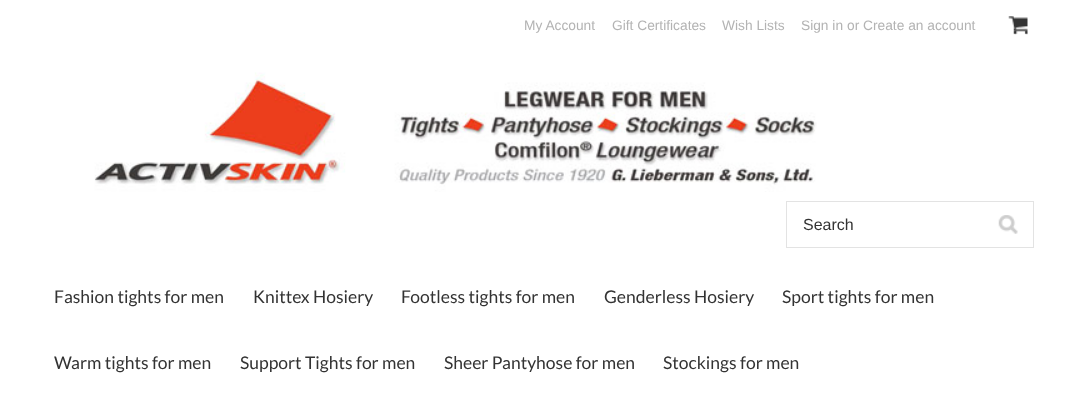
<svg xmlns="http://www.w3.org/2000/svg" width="1087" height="395">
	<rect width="100%" height="100%" fill="#FFFFFF" />
	<g font-family="Liberation Sans" font-size="13.75" fill="#B3B3B3">
		<text x="524" y="30">My Account</text>
		<text x="612" y="30">Gift Certificates</text>
		<text x="722" y="30">Wish Lists</text>
		<text x="801" y="30">Sign in</text>
		<text x="847" y="30">or Create an account</text>
	</g>
	<image x="1008" y="16" width="20" height="19" href="assets/img1.png" />
	<image x="94" y="72" width="723" height="120" href="assets/img2.png" />
	<rect x="786.5" y="201.5" width="247" height="46" fill="none" stroke="#E3E3E3" />
	<text x="803" y="230" font-family="Liberation Sans" font-size="16" fill="#333333">Search</text>
	<image x="998" y="215" width="20" height="19" href="assets/img3.png" />
	<g font-family="Lato" font-size="17.5" fill="#333333">
		<text x="54" y="303">Fashion tights for men</text>
		<text x="253" y="303">Knittex Hosiery</text>
		<text x="401" y="303">Footless tights for men</text>
		<text x="604" y="303">Genderless Hosiery</text>
		<text x="782" y="303">Sport tights for men</text>
		<text x="54" y="369">Warm tights for men</text>
		<text x="240" y="369">Support Tights for men</text>
		<text x="444" y="369">Sheer Pantyhose for men</text>
		<text x="663" y="369">Stockings for men</text>
	</g>
</svg>
